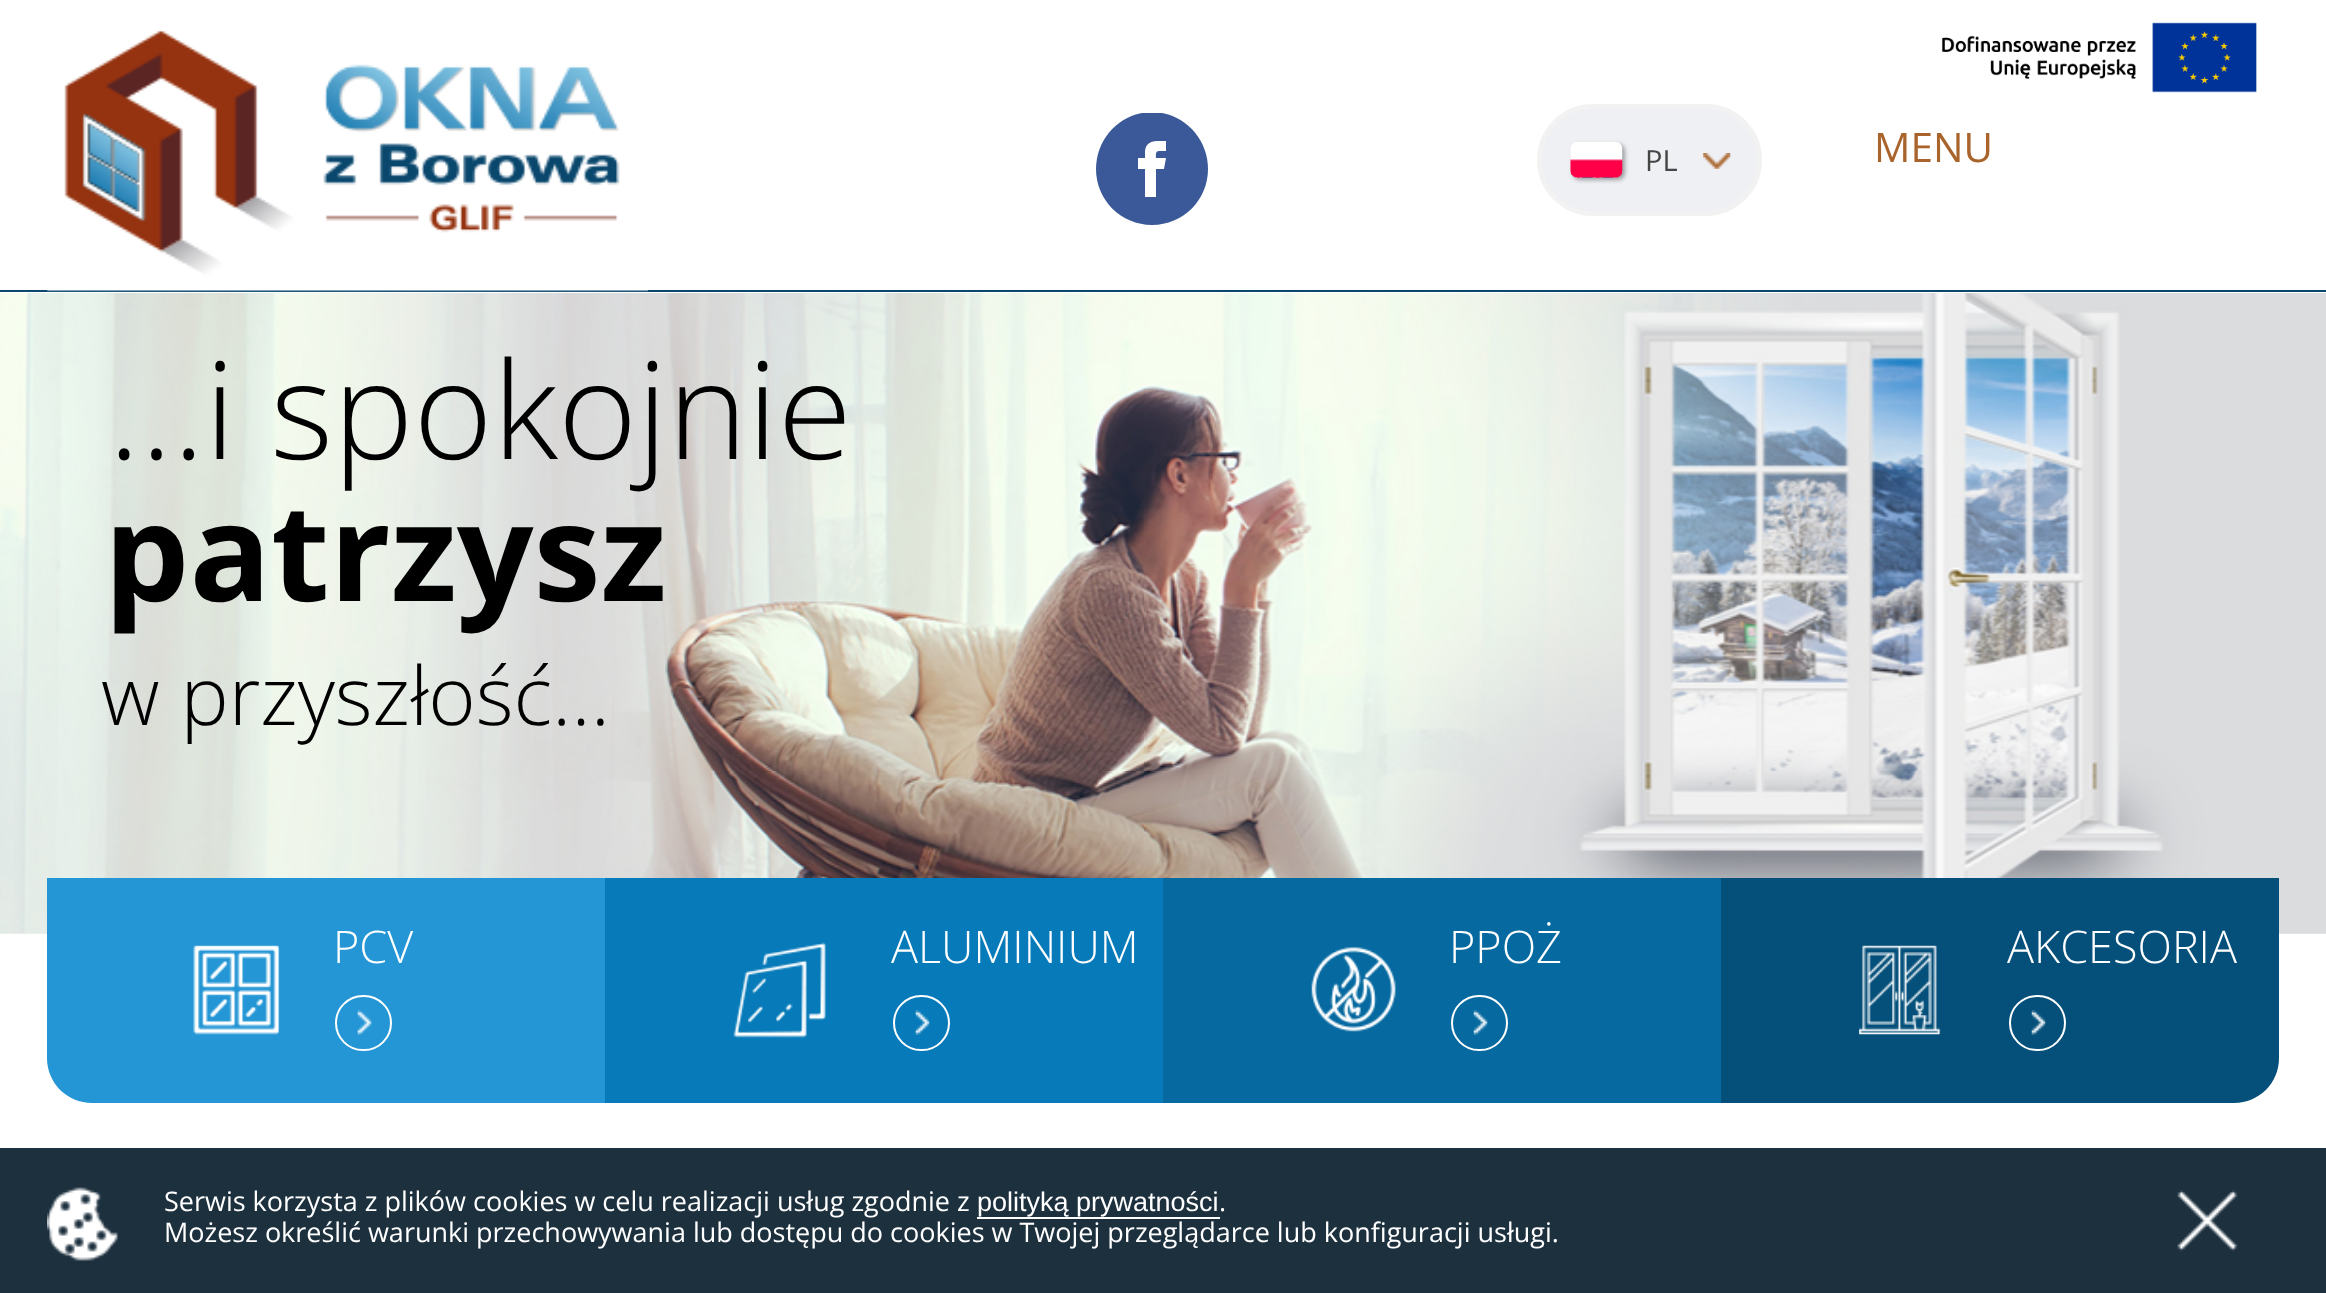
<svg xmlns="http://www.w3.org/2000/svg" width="2326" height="1293">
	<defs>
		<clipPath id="clip1"><rect x="1096" y="113" width="112" height="112" /></clipPath>
	</defs>
	<rect width="100%" height="100%" fill="#FFFFFF" />
	<rect x="0" y="290" width="2326" height="2" fill="#0B476C" />
	<image x="47" y="29" width="601" height="263" href="assets/img1.png" />
	<g clip-path="url(#clip1)">
		<path d="M1152 112C1183 112 1208 138 1208 169C1208 200 1183 225 1152 225C1121 225 1096 200 1096 169C1096 138 1121 112 1152 112Z" fill="#3B5998" />
	</g>
	<path d="M1159 151H1166V141H1158C1147 141 1145 147 1145 153V158H1138V169H1145V197H1156V169H1164L1166 158H1156C1156 156 1155 151 1159 151Z" fill="#FFFFFF" />
	<rect x="1539.5" y="106.5" width="220" height="107" rx="53.5" fill="#EFF0F4" stroke="#F2F2F2" stroke-width="5" />
	<rect x="1573" y="144" width="52" height="36" rx="7" fill="#020202" fill-opacity="0.35" filter="blur(2px)" />
	<image x="1570" y="141" width="53" height="37" href="assets/img2.png" />
	<text x="1645" y="171" font-family="Open Sans" font-size="29" fill="#454545">PL</text>
	<image x="1703" y="153" width="28" height="16" href="assets/img3.png" />
	<text x="1874" y="162" font-family="Open Sans" font-size="40.5" fill="#A9642B">MENU</text>
	<image x="1941" y="22" width="316" height="71" href="assets/img4.png" />
	<image x="0" y="293" width="2326" height="641" href="assets/img5.png" />
	<image x="185" y="293" width="2141" height="639" href="assets/img6.png" />
	<text x="108" y="459" font-family="Open Sans" font-size="135" font-weight="300" fill="#000000">…i spokojnie</text>
	<text x="104" y="601" font-family="Open Sans" font-size="135" font-weight="700" fill="#000000">patrzysz</text>
	<text x="101" y="725" font-family="Open Sans" font-size="81" font-weight="300" fill="#000000">w przyszłość…</text>
	<path d="M47 878H605V1103H92C67 1103 47 1083 47 1058Z" fill="#2496D5" />
	<image x="193" y="945" width="87" height="90" href="assets/img7.png" />
	<text x="333" y="963" font-family="Open Sans" font-size="45" font-weight="300" fill="#FFFFFF">PCV</text>
	<image x="357" y="1010" width="15" height="25" href="assets/img8.png" />
	<rect x="336" y="996" width="55" height="54" rx="27" fill="none" stroke="#FFFFFF" stroke-width="2" />
	<rect x="605" y="878" width="558" height="225" fill="#077AB9" />
	<image x="733" y="942" width="93" height="96" href="assets/img9.png" />
	<text x="891" y="963" font-family="Open Sans" font-size="45" font-weight="300" fill="#FFFFFF">ALUMINIUM</text>
	<image x="915" y="1010" width="15" height="25" href="assets/img10.png" />
	<rect x="894" y="996" width="55" height="54" rx="27" fill="none" stroke="#FFFFFF" stroke-width="2" />
	<rect x="1163" y="878" width="558" height="225" fill="#0669A0" />
	<image x="1311" y="947" width="85" height="85" href="assets/img11.png" />
	<text x="1449" y="963" font-family="Open Sans" font-size="45" font-weight="300" fill="#FFFFFF">PPOŻ</text>
	<image x="1473" y="1010" width="15" height="25" href="assets/img12.png" />
	<rect x="1452" y="996" width="55" height="54" rx="27" fill="none" stroke="#FFFFFF" stroke-width="2" />
	<path d="M1721 878H2279V1058C2279 1083 2259 1103 2234 1103H1721Z" fill="#05507A" />
	<image x="1859" y="945" width="82" height="90" href="assets/img13.png" />
	<text x="2007" y="963" font-family="Open Sans" font-size="45" font-weight="300" fill="#FFFFFF">AKCESORIA</text>
	<image x="2031" y="1010" width="15" height="25" href="assets/img14.png" />
	<rect x="2010" y="996" width="55" height="54" rx="27" fill="none" stroke="#FFFFFF" stroke-width="2" />
	<rect x="0" y="1148" width="2326" height="145" fill="#1D303E" />
	<image x="47" y="1187" width="71" height="74" href="assets/img15.png" />
	<text x="164" y="1211" font-family="Open Sans" font-size="27" fill="#FFFFFF">Serwis korzysta z plików cookies w celu realizacji usług zgodnie z</text>
	<text x="977" y="1211" font-family="Liberation Sans" font-size="27" fill="#FFFFFF">polityką prywatności</text>
	<rect x="977" y="1217" width="243" height="2" fill="#FFFFFF" />
	<g font-family="Open Sans" font-size="27" fill="#FFFFFF">
		<text x="1219" y="1211">.</text>
		<text x="164" y="1242">Możesz określić warunki przechowywania lub dostępu do cookies w Twojej przeglądarce lub konfiguracji usługi.</text>
	</g>
	<image x="2177" y="1190" width="61" height="62" href="assets/img16.png" />
</svg>
